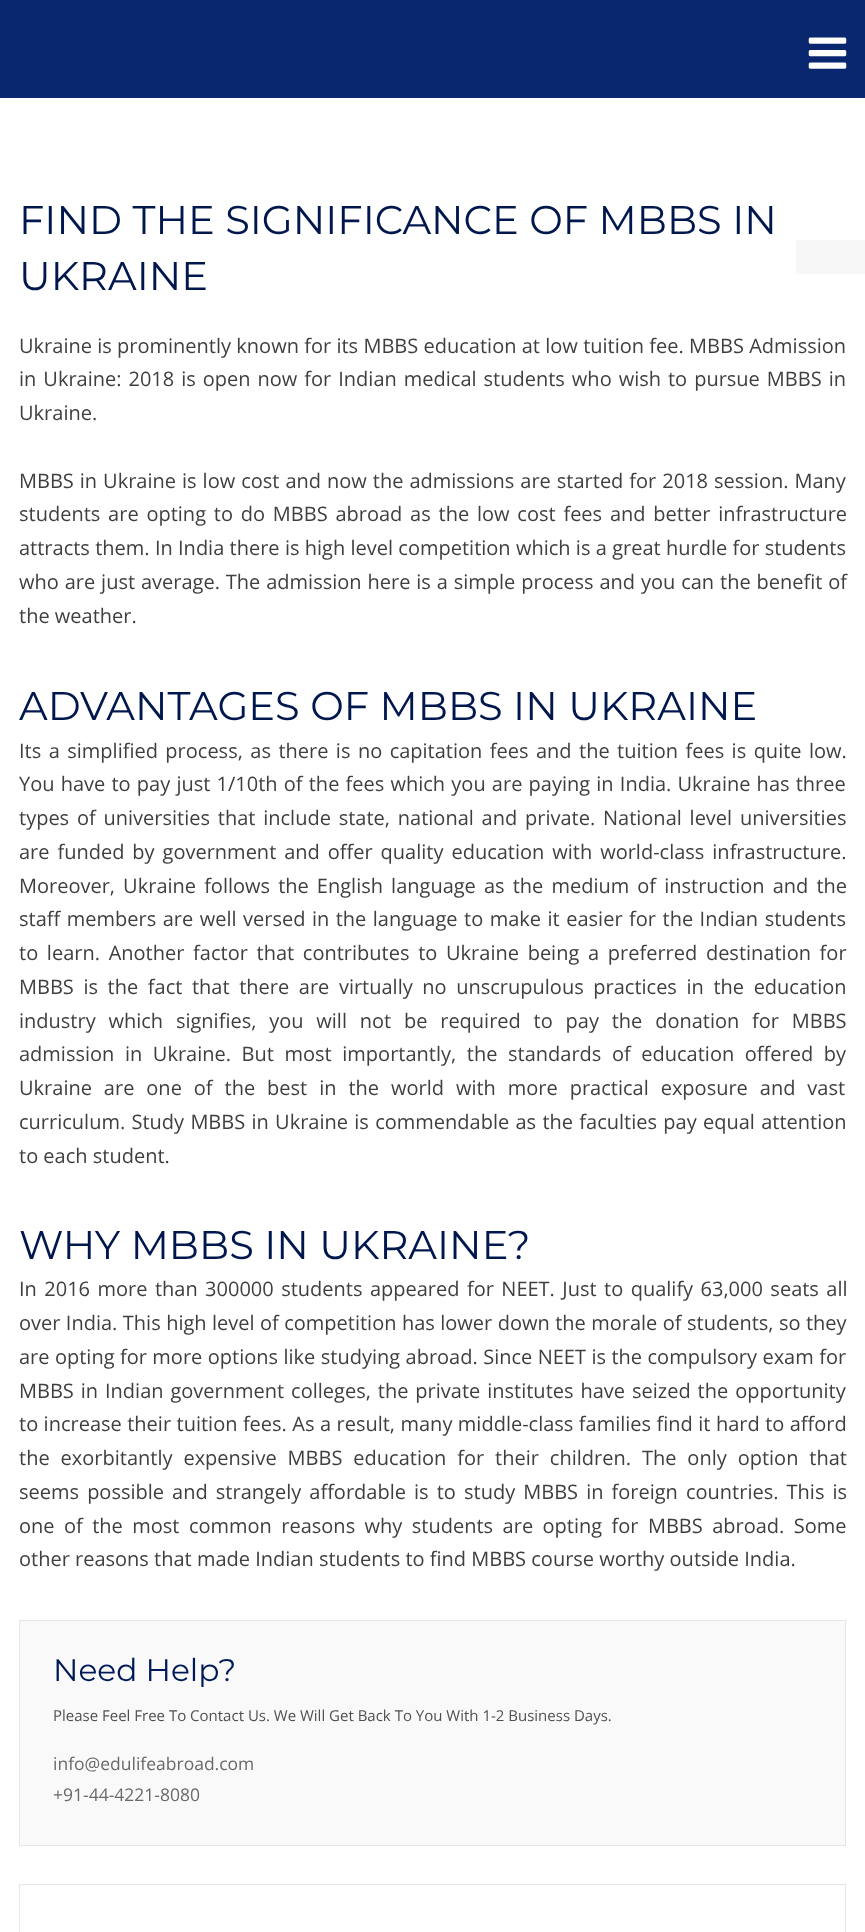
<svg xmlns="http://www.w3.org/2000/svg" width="865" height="1932">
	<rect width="100%" height="100%" fill="#FFFFFF" />
	<rect x="0" y="0" width="865" height="98" fill="#09276F" />
	<image x="808" y="37" width="39" height="32" href="assets/img1.png" />
	<g font-family="Montserrat" font-size="40" fill="#00174D">
		<text x="19" y="234">FIND THE SIGNIFICANCE OF MBBS IN</text>
		<text x="19" y="290">UKRAINE</text>
	</g>
	<g font-family="Open Sans" font-size="20" fill="#3F3F3F">
		<text x="19" y="353" word-spacing="0.1">Ukraine is prominently known for its MBBS education at low tuition fee. MBBS Admission</text>
		<text x="19" y="386" word-spacing="1.8">in Ukraine: 2018 is open now for Indian medical students who wish to pursue MBBS in</text>
		<text x="19" y="420">Ukraine.</text>
		<text x="19" y="488" word-spacing="0.8">MBBS in Ukraine is low cost and now the admissions are started for 2018 session. Many</text>
		<text x="19" y="521" word-spacing="2.6">students are opting to do MBBS abroad as the low cost fees and better infrastructure</text>
		<text x="19" y="555" word-spacing="0.1">attracts them. In India there is high level competition which is a great hurdle for students</text>
		<text x="19" y="589" word-spacing="0.7">who are just average. The admission here is a simple process and you can the benefit of</text>
		<text x="19" y="623">the weather.</text>
	</g>
	<text x="19" y="720" font-family="Montserrat" font-size="40" fill="#00174D">ADVANTAGES OF MBBS IN UKRAINE</text>
	<g font-family="Open Sans" font-size="20" fill="#3F3F3F">
		<text x="19" y="758" word-spacing="2.25">Its a simplified process, as there is no capitation fees and the tuition fees is quite low.</text>
		<text x="19" y="791" word-spacing="1">You have to pay just 1/10th of the fees which you are paying in India. Ukraine has three</text>
		<text x="19" y="825" word-spacing="2.6">types of universities that include state, national and private. National level universities</text>
		<text x="19" y="859" word-spacing="2.75">are funded by government and offer quality education with world-class infrastructure.</text>
		<text x="19" y="893" word-spacing="2.9">Moreover, Ukraine follows the English language as the medium of instruction and the</text>
		<text x="19" y="926" word-spacing="1.3">staff members are well versed in the language to make it easier for the Indian students</text>
		<text x="19" y="960" word-spacing="3.5">to learn. Another factor that contributes to Ukraine being a preferred destination for</text>
		<text x="19" y="994" word-spacing="4.4">MBBS is the fact that there are virtually no unscrupulous practices in the education</text>
		<text x="19" y="1028" word-spacing="7.6">industry which signifies, you will not be required to pay the donation for MBBS</text>
		<text x="19" y="1061" word-spacing="5.4">admission in Ukraine. But most importantly, the standards of education offered by</text>
		<text x="19" y="1095" word-spacing="6.75">Ukraine are one of the best in the world with more practical exposure and vast</text>
		<text x="19" y="1129" word-spacing="1.1">curriculum. Study MBBS in Ukraine is commendable as the faculties pay equal attention</text>
		<text x="19" y="1163">to each student.</text>
	</g>
	<text x="19" y="1259" font-family="Montserrat" font-size="40" fill="#00174D">WHY MBBS IN UKRAINE?</text>
	<g font-family="Open Sans" font-size="20" fill="#3F3F3F">
		<text x="19" y="1296" word-spacing="2.25">In 2016 more than 300000 students appeared for NEET. Just to qualify 63,000 seats all</text>
		<text x="19" y="1330" word-spacing="0.25">over India. This high level of competition has lower down the morale of students, so they</text>
		<text x="19" y="1364" word-spacing="0.25">are opting for more options like studying abroad. Since NEET is the compulsory exam for</text>
		<text x="19" y="1398" word-spacing="1.75">MBBS in Indian government colleges, the private institutes have seized the opportunity</text>
		<text x="19" y="1431" word-spacing="0.25">to increase their tuition fees. As a result, many middle-class families find it hard to afford</text>
		<text x="19" y="1465" word-spacing="5.75">the exorbitantly expensive MBBS education for their children. The only option that</text>
		<text x="19" y="1499" word-spacing="2.9">seems possible and strangely affordable is to study MBBS in foreign countries. This is</text>
		<text x="19" y="1533" word-spacing="4.25">one of the most common reasons why students are opting for MBBS abroad. Some</text>
		<text x="19" y="1566">other reasons that made Indian students to find MBBS course worthy outside India.</text>
	</g>
	<rect x="19.5" y="1620.5" width="826" height="225" fill="#F9F9F9" stroke="#E6E6E6" />
	<text x="53" y="1681" font-family="Montserrat" font-size="31.25" fill="#001A57">Need Help?</text>
	<text x="53" y="1721" font-family="Open Sans" font-size="15" fill="#505050">Please Feel Free To Contact Us. We Will Get Back To You With 1-2 Business Days.</text>
	<g font-family="Open Sans" font-size="17.5" fill="#696969">
		<text x="53" y="1770">info@edulifeabroad.com</text>
		<text x="53" y="1801">+91-44-4221-8080</text>
	</g>
	<rect x="19.5" y="1884.5" width="826" height="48" fill="none" stroke="#E6E6E6" />
	<rect x="796" y="240" width="69" height="34" fill="#F7F7F7" />
</svg>
